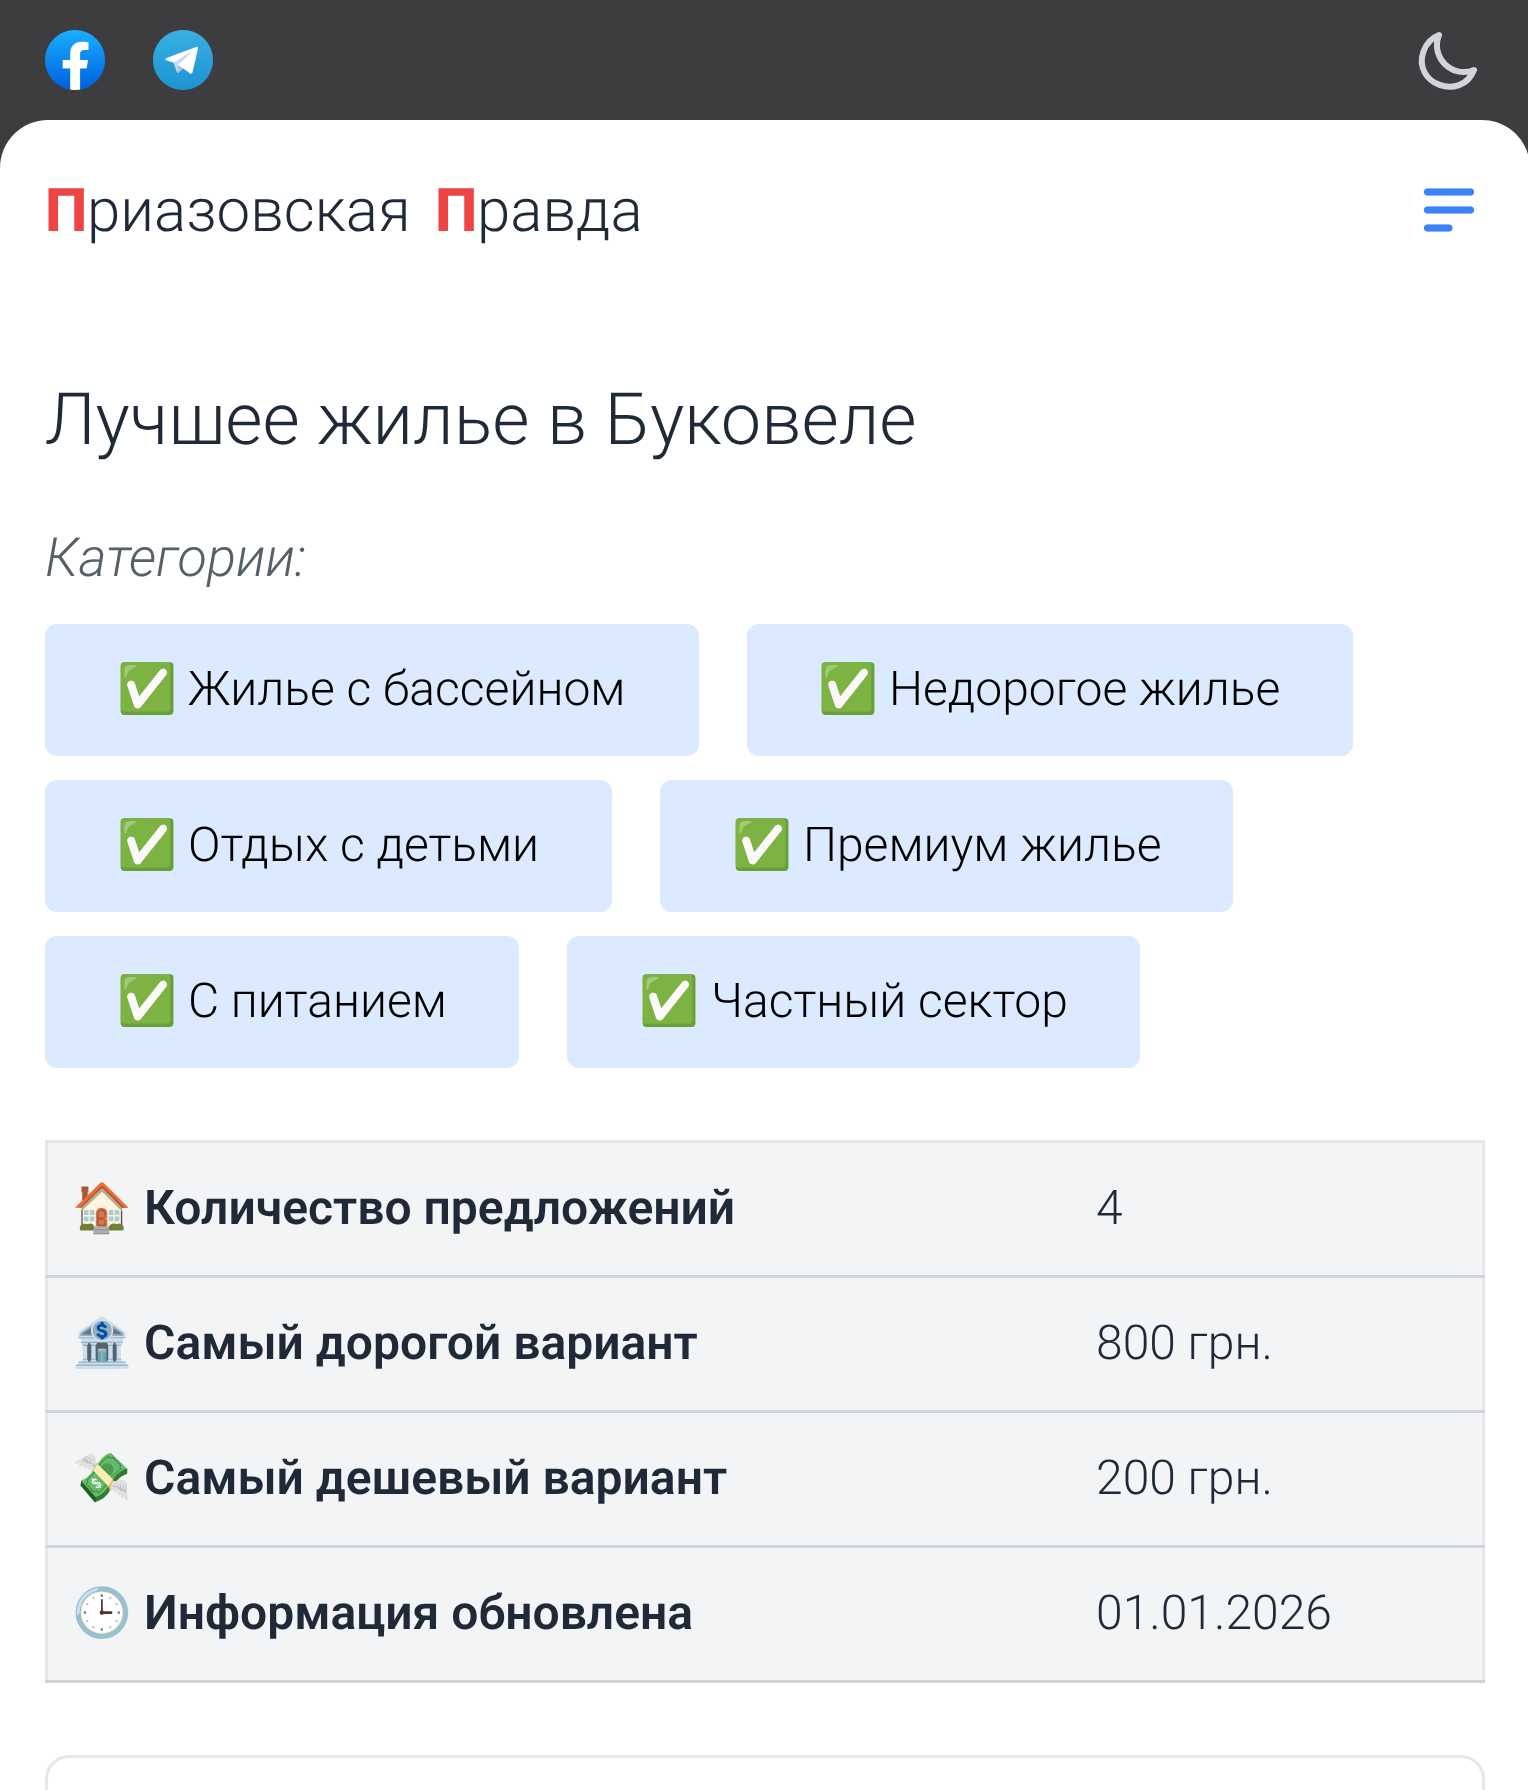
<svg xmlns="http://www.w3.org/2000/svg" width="1528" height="1790">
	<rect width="100%" height="100%" fill="#3D3D3F" />
	<image x="45" y="30" width="60" height="60" href="assets/img1.png" />
	<image x="153" y="30" width="60" height="60" href="assets/img2.png" />
	<path d="M1474 70C1452 79 1430 57 1439 35C1431.5 38 1426 44 1423.5 51.5C1412 84 1461 102 1474 70Z" fill="none" stroke="#D1D5DB" stroke-width="6" stroke-linecap="round" stroke-linejoin="round" />
	<path d="M48 120H1482C1508.5 120 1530 141.5 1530 168V300H0V168C0 141.5 21.5 120 48 120Z" fill="#FFFFFF" />
	<text x="45" y="231" font-family="Roboto" font-size="60" font-weight="800" fill="#EF4444">П</text>
	<text x="87" y="231" font-family="Roboto" font-size="60" font-weight="300" fill="#1F2937">риазовская</text>
	<text x="435" y="231" font-family="Roboto" font-size="60" font-weight="800" fill="#EF4444">П</text>
	<text x="477" y="231" font-family="Roboto" font-size="60" font-weight="300" fill="#1F2937">равда</text>
	<image x="1423" y="188" width="52" height="44" href="assets/img3.png" />
	<rect x="0" y="300" width="1528" height="1490" fill="#FFFFFF" />
	<text x="45" y="444" font-family="Roboto" font-size="72" font-weight="300" fill="#1F2937">Лучшее жилье в Буковеле</text>
	<text x="45" y="576" font-family="Roboto" font-size="54" font-weight="300" font-style="italic" fill="#575F69">Категории:</text>
	<rect x="45" y="624" width="654" height="132" rx="12" fill="#DBEAFE" />
	<text x="117" y="705" font-family="Noto Color Emoji" font-size="48" fill="#000000">✅</text>
	<text x="188" y="705" font-family="Roboto" font-size="48" font-weight="300" fill="#000000">Жилье с бассейном</text>
	<rect x="747" y="624" width="606" height="132" rx="12" fill="#DBEAFE" />
	<text x="818" y="705" font-family="Noto Color Emoji" font-size="48" fill="#000000">✅</text>
	<text x="889" y="705" font-family="Roboto" font-size="48" font-weight="300" fill="#000000">Недорогое жилье</text>
	<rect x="45" y="780" width="567" height="132" rx="12" fill="#DBEAFE" />
	<text x="117" y="861" font-family="Noto Color Emoji" font-size="48" fill="#000000">✅</text>
	<text x="188" y="861" font-family="Roboto" font-size="48" font-weight="300" fill="#000000">Отдых с детьми</text>
	<rect x="660" y="780" width="573" height="132" rx="12" fill="#DBEAFE" />
	<text x="732" y="861" font-family="Noto Color Emoji" font-size="48" fill="#000000">✅</text>
	<text x="803" y="861" font-family="Roboto" font-size="48" font-weight="300" fill="#000000">Премиум жилье</text>
	<rect x="45" y="936" width="474" height="132" rx="12" fill="#DBEAFE" />
	<text x="117" y="1017" font-family="Noto Color Emoji" font-size="48" fill="#000000">✅</text>
	<text x="188" y="1017" font-family="Roboto" font-size="48" font-weight="300" fill="#000000">С питанием</text>
	<rect x="567" y="936" width="573" height="132" rx="12" fill="#DBEAFE" />
	<text x="639" y="1017" font-family="Noto Color Emoji" font-size="48" fill="#000000">✅</text>
	<text x="711" y="1017" font-family="Roboto" font-size="48" font-weight="300" fill="#000000">Частный сектор</text>
	<rect x="48" y="1143" width="1434" height="537" fill="#F3F4F6" />
	<rect x="45" y="1140" width="1440" height="3" fill="#E5E7EB" />
	<rect x="1482" y="1140" width="3" height="543" fill="#E5E7EB" />
	<rect x="45" y="1140" width="3" height="543" fill="#E5E7EB" />
	<rect x="45" y="1275" width="1440" height="3" fill="#D1D5DB" />
	<text x="72" y="1224" font-family="Noto Color Emoji" font-size="48" font-weight="700" fill="#1F2937">🏠</text>
	<text x="144" y="1224" font-family="Roboto" font-size="48" font-weight="600" fill="#1F2937">Количество предложений</text>
	<text x="1096" y="1224" font-family="Roboto" font-size="48" font-weight="300" fill="#1F2937">4</text>
	<rect x="45" y="1410" width="1440" height="3" fill="#D1D5DB" />
	<text x="72" y="1359" font-family="Noto Color Emoji" font-size="48" font-weight="700" fill="#1F2937">🏦</text>
	<text x="144" y="1359" font-family="Roboto" font-size="48" font-weight="600" fill="#1F2937">Самый дорогой вариант</text>
	<text x="1096" y="1359" font-family="Roboto" font-size="48" font-weight="300" fill="#1F2937">800 грн.</text>
	<rect x="45" y="1545" width="1440" height="3" fill="#D1D5DB" />
	<text x="72" y="1494" font-family="Noto Color Emoji" font-size="48" font-weight="700" fill="#1F2937">💸</text>
	<text x="144" y="1494" font-family="Roboto" font-size="48" font-weight="600" fill="#1F2937">Самый дешевый вариант</text>
	<text x="1096" y="1494" font-family="Roboto" font-size="48" font-weight="300" fill="#1F2937">200 грн.</text>
	<rect x="45" y="1680" width="1440" height="3" fill="#D1D5DB" />
	<text x="72" y="1629" font-family="Noto Color Emoji" font-size="48" font-weight="700" fill="#1F2937">🕒</text>
	<text x="144" y="1629" font-family="Roboto" font-size="48" font-weight="600" fill="#1F2937">Информация обновлена</text>
	<text x="1096" y="1629" font-family="Roboto" font-size="48" font-weight="300" fill="#1F2937">01.01.2026</text>
	<rect x="46.5" y="1756.5" width="1437" height="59" rx="22.5" fill="none" stroke="#E5E7EB" stroke-width="3" />
</svg>
